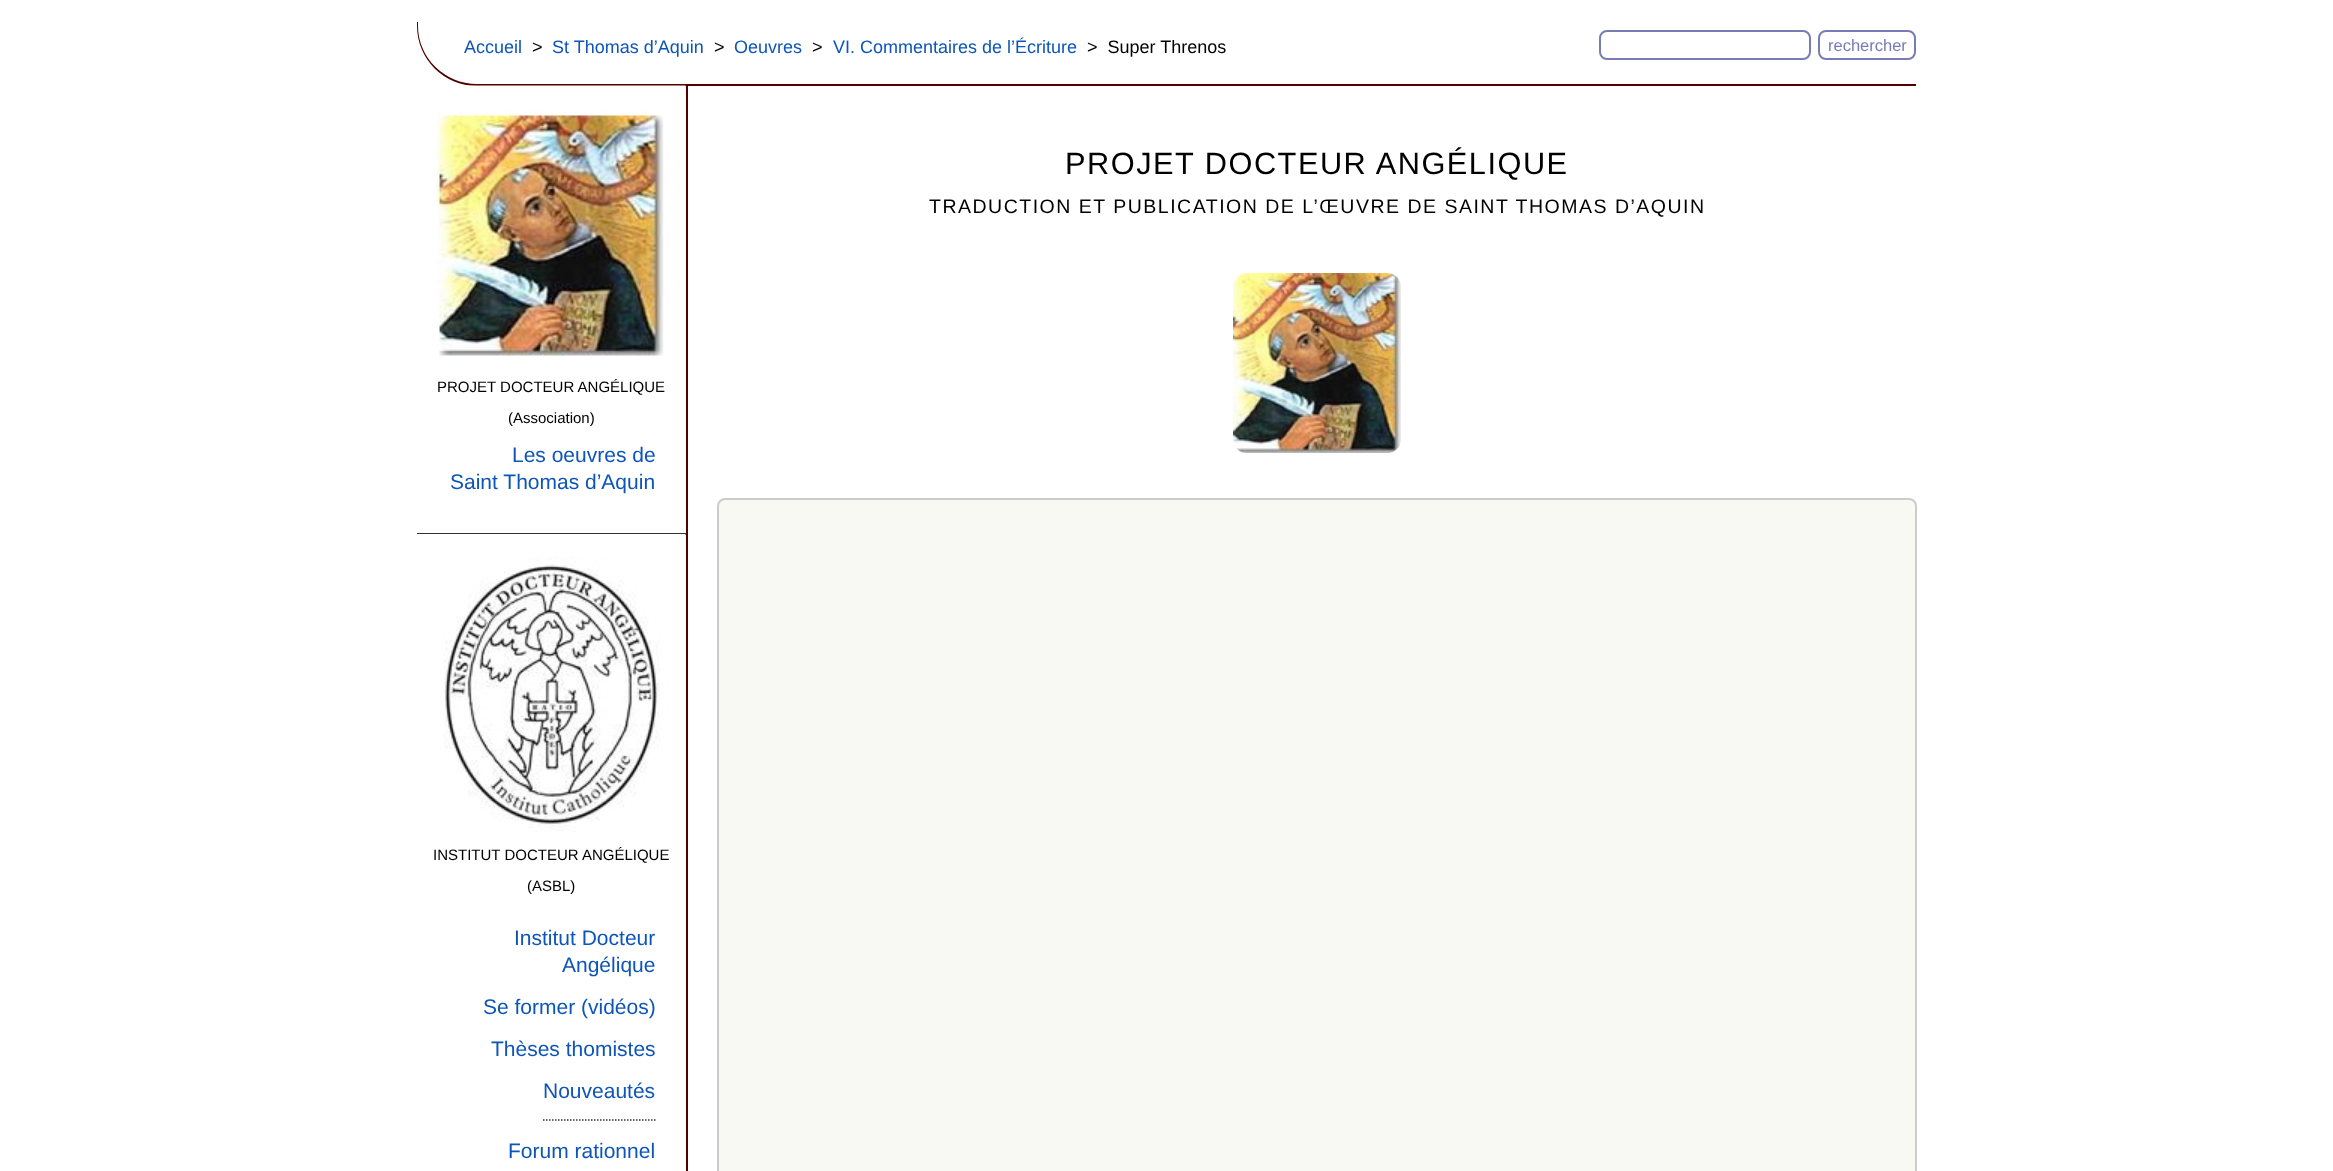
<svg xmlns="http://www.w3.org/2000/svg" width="2333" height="1171">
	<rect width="100%" height="100%" fill="#FFFFFF" />
	<path d="M417 22H1916V86H477C444 86 417 59 417 26ZM418 22H1916V84H477C445 84 418 58 418 26Z" fill="#500000" fill-rule="evenodd" />
	<text x="464" y="53" font-family="Liberation Sans" font-size="18" fill="#0D55B8">Accueil</text>
	<text x="532" y="53" font-family="Liberation Sans" font-size="18" fill="#000000">&gt;</text>
	<text x="552" y="53" font-family="Liberation Sans" font-size="18" fill="#0D55B8">St Thomas d’Aquin</text>
	<text x="714" y="53" font-family="Liberation Sans" font-size="18" fill="#000000">&gt;</text>
	<text x="734" y="53" font-family="Liberation Sans" font-size="18" fill="#0D55B8">Oeuvres</text>
	<text x="812" y="53" font-family="Liberation Sans" font-size="18" fill="#000000">&gt;</text>
	<text x="833" y="53" font-family="Liberation Sans" font-size="18" fill="#0D55B8">VI. Commentaires de l’Écriture</text>
	<text x="1087" y="53" font-family="Liberation Sans" font-size="18" fill="#000000" xml:space="preserve">&gt;  Super Threnos</text>
	<rect x="1600" y="31" width="210" height="28" rx="7" fill="none" stroke="#787CB5" stroke-width="2" />
	<rect x="1819" y="31" width="96" height="28" rx="7" fill="none" stroke="#787CB5" stroke-width="2" />
	<text x="1828" y="51" font-family="Liberation Sans" font-size="16.5" fill="#787CB5">rechercher</text>
	<text x="1065" y="174" font-family="Liberation Sans" font-size="30.75" letter-spacing="1.5" fill="#000000">PROJET DOCTEUR ANGÉLIQUE</text>
	<text x="929" y="213" font-family="Liberation Sans" font-size="19.5" letter-spacing="1.5" fill="#000000">TRADUCTION ET PUBLICATION DE L’ŒUVRE DE SAINT THOMAS D’AQUIN</text>
	<image x="1233" y="273" width="168" height="180" href="assets/img1.png" />
	<rect x="718" y="499" width="1198" height="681" rx="7" fill="#F9F9F4" stroke="#CCCCCC" stroke-width="2" />
	<rect x="686" y="86" width="2" height="1085" fill="#500000" />
	<image x="435" y="85" width="251" height="271" href="assets/img2.png" />
	<g font-family="Liberation Sans" font-size="15" fill="#000000">
		<text x="437" y="392">PROJET DOCTEUR ANGÉLIQUE</text>
		<text x="508" y="423">(Association)</text>
	</g>
	<g font-family="Liberation Sans" font-size="21" fill="#0D55B8">
		<text x="512" y="462">Les oeuvres de</text>
		<text x="450" y="489">Saint Thomas d’Aquin</text>
	</g>
	<rect x="417" y="533" width="269" height="2" fill="#333333" />
	<image x="417" y="534" width="269" height="298" href="assets/img3.png" />
	<g font-family="Liberation Sans" font-size="15" fill="#000000">
		<text x="433" y="860">INSTITUT DOCTEUR ANGÉLIQUE</text>
		<text x="527" y="891">(ASBL)</text>
	</g>
	<g font-family="Liberation Sans" font-size="21" fill="#0D55B8">
		<text x="514" y="945">Institut Docteur</text>
		<text x="562" y="972">Angélique</text>
		<text x="483" y="1014">Se former (vidéos)</text>
		<text x="491" y="1056">Thèses thomistes</text>
		<text x="543" y="1098">Nouveautés</text>
	</g>
	<path d="M543 1120H655.5" fill="none" stroke="#333333" stroke-width="1.5" stroke-dasharray="1.5 1.5" />
	<text x="508" y="1158" font-family="Liberation Sans" font-size="21" fill="#0D55B8">Forum rationnel</text>
</svg>
